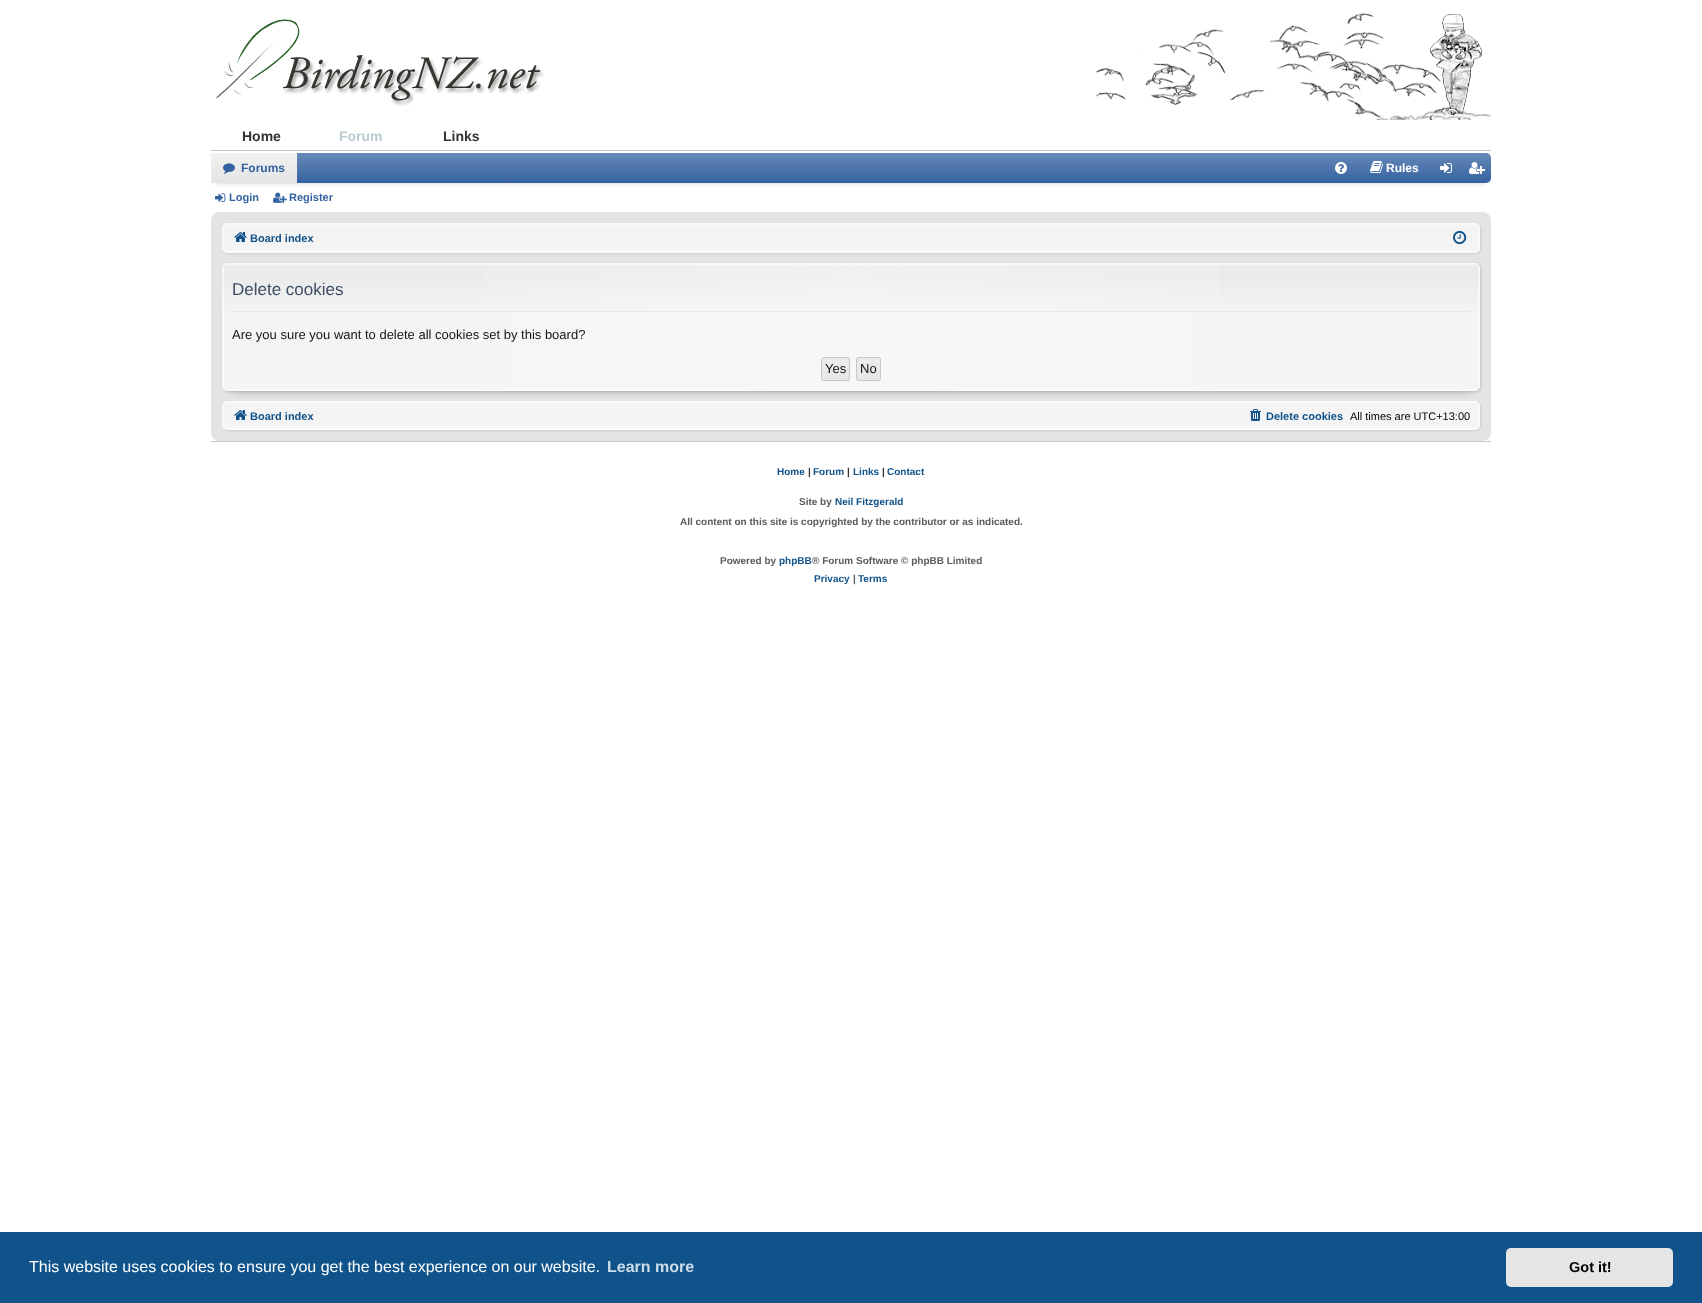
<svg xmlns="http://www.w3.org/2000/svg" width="1702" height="1303">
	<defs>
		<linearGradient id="g1" gradientUnits="userSpaceOnUse" x1="851" y1="153" x2="851" y2="183"><stop offset="0" stop-color="#FFFFFF" stop-opacity="0.25" /><stop offset="1" stop-color="#FFFFFF" stop-opacity="0" /></linearGradient>
		<linearGradient id="g2" gradientUnits="userSpaceOnUse" x1="254" y1="153" x2="254" y2="183"><stop offset="0" stop-color="#F2F2F2" /><stop offset="1" stop-color="#E4E4E4" /></linearGradient>
		<clipPath id="clip1"><rect x="222" y="263" width="1258" height="128" rx="5" /></clipPath>
		<linearGradient id="g3" gradientUnits="userSpaceOnUse" x1="851" y1="264" x2="851" y2="390"><stop offset="0" stop-color="#CCCCCC" stop-opacity="0.2" /><stop offset="0.08" stop-color="#CCCCCC" stop-opacity="0.25" /><stop offset="0.4" stop-color="#CCCCCC" stop-opacity="0" /></linearGradient>
		<linearGradient id="g4" gradientUnits="userSpaceOnUse" x1="223" y1="327" x2="1479" y2="327"><stop offset="0" stop-color="#FFFFFF" stop-opacity="0" /><stop offset="0.5" stop-color="#FFFFFF" stop-opacity="0.3" /><stop offset="1" stop-color="#FFFFFF" stop-opacity="0" /></linearGradient>
		<linearGradient id="g5" gradientUnits="userSpaceOnUse" x1="836" y1="358" x2="836" y2="380"><stop offset="0" stop-color="#FFFFFF" stop-opacity="0.2" /><stop offset="1" stop-color="#FFFFFF" stop-opacity="0" /></linearGradient>
		<linearGradient id="g6" gradientUnits="userSpaceOnUse" x1="869" y1="358" x2="869" y2="380"><stop offset="0" stop-color="#FFFFFF" stop-opacity="0.2" /><stop offset="1" stop-color="#FFFFFF" stop-opacity="0" /></linearGradient>
	</defs>
	<rect width="100%" height="100%" fill="#FFFFFF" />
	<image x="216" y="19" width="328" height="87" href="assets/img1.png" />
	<image x="1095" y="13" width="396" height="107" href="assets/img2.png" />
	<rect x="211" y="150" width="1280" height="1" fill="#C8C8C8" />
	<text x="242" y="141" font-family="Liberation Sans" font-size="14" font-weight="700" fill="#333333">Home</text>
	<text x="339" y="141" font-family="Liberation Sans" font-size="14" font-weight="700" fill="#BACBD1">Forum</text>
	<text x="443" y="141" font-family="Liberation Sans" font-size="14" font-weight="700" fill="#333333">Links</text>
	<rect x="216" y="163" width="1270" height="20" fill="#000000" fill-opacity="0.2" filter="blur(2.5px)" />
	<rect x="211" y="153" width="1280" height="30" rx="5" fill="#3462A0" />
	<rect x="211" y="153" width="1280" height="30" rx="5" fill="url(#g1)" />
	<rect x="211" y="153" width="86" height="30" fill="url(#g2)" />
	<image x="223" y="163" width="12" height="11" href="assets/img3.png" />
	<text x="241" y="172" font-family="Liberation Sans" font-size="12" font-weight="700" fill="#3462A0">Forums</text>
	<image x="1335" y="162" width="12" height="12" href="assets/img4.png" />
	<image x="1370" y="161" width="13" height="12" href="assets/img5.png" />
	<text x="1386" y="172" font-family="Liberation Sans" font-size="12" font-weight="700" fill="#FFFFFF">Rules</text>
	<image x="1440" y="163" width="12" height="10" href="assets/img6.png" />
	<image x="1469" y="162" width="16" height="12" href="assets/img7.png" />
	<image x="215" y="193" width="11" height="9" href="assets/img8.png" />
	<text x="229" y="201" font-family="Liberation Sans" font-size="11" font-weight="700" fill="#3462A0">Login</text>
	<image x="273" y="192" width="14" height="11" href="assets/img9.png" />
	<text x="289" y="201" font-family="Liberation Sans" font-size="11" font-weight="700" fill="#3462A0">Register</text>
	<rect x="211.5" y="212.5" width="1279" height="228" rx="7.5" fill="#E4E4E4" stroke="#E4E4E4" />
	<rect x="223" y="224" width="1258" height="30" rx="5" fill="#000000" fill-opacity="0.1" filter="blur(1px)" />
	<rect x="222" y="223" width="1258" height="30" rx="5" fill="#F4F4F4" />
	<rect x="223.5" y="224.5" width="1255" height="27" rx="3.5" fill="none" stroke="#FAFAFA" />
	<rect x="222.5" y="223.5" width="1257" height="29" rx="4.5" fill="none" stroke="#F9F9F9" />
	<image x="234" y="232" width="13" height="10" href="assets/img10.png" />
	<text x="250" y="242" font-family="Liberation Sans" font-size="11" font-weight="700" fill="#105289">Board index</text>
	<image x="1453" y="230" width="14" height="15" href="assets/img11.png" />
	<rect x="232" y="283" width="1238" height="108" fill="#000000" fill-opacity="0.2" filter="blur(5px)" />
	<rect x="223" y="264" width="1258" height="128" rx="5" fill="#000000" fill-opacity="0.15" filter="blur(1.5px)" />
	<rect x="222" y="263" width="1258" height="128" rx="5" fill="#F4F4F4" />
	<g clip-path="url(#clip1)">
		<rect x="222" y="264" width="1258" height="47" fill="url(#g3)" />
	</g>
	<rect x="482" y="264" width="738" height="126" fill="url(#g4)" />
	<rect x="223.5" y="264.5" width="1255" height="125" rx="3.5" fill="none" stroke="#FFFFFF" stroke-opacity="0.5" />
	<rect x="222.5" y="263.5" width="1257" height="127" rx="4.5" fill="none" stroke="#F9F9F9" />
	<rect x="232" y="311" width="1238" height="1" fill="#E7E7E7" />
	<text x="232" y="295" font-family="Liberation Sans" font-size="17" fill="#3C4D65">Delete cookies</text>
	<text x="232" y="339" font-family="Liberation Sans" font-size="13" fill="#141414">Are you sure you want to delete all cookies set by this board?</text>
	<rect x="821" y="357" width="29" height="24" rx="3" fill="#E8E8E8" />
	<rect x="821" y="358" width="29" height="10" fill="url(#g5)" />
	<rect x="821.5" y="357.5" width="28" height="23" rx="2.5" fill="none" stroke="#C6C6C6" />
	<text x="825" y="373" font-family="Liberation Sans" font-size="13" fill="#141414">Yes</text>
	<rect x="856" y="357" width="25" height="24" rx="3" fill="#E8E8E8" />
	<rect x="856" y="358" width="25" height="10" fill="url(#g6)" />
	<rect x="856.5" y="357.5" width="24" height="23" rx="2.5" fill="none" stroke="#C6C6C6" />
	<text x="860" y="373" font-family="Liberation Sans" font-size="13" fill="#141414">No</text>
	<rect x="223" y="402" width="1258" height="29" rx="5" fill="#000000" fill-opacity="0.1" filter="blur(1px)" />
	<rect x="222" y="401" width="1258" height="29" rx="5" fill="#F4F4F4" />
	<rect x="223.5" y="402.5" width="1255" height="26" rx="3.5" fill="none" stroke="#FAFAFA" />
	<rect x="222.5" y="401.5" width="1257" height="28" rx="4.5" fill="none" stroke="#F9F9F9" />
	<image x="234" y="410" width="13" height="10" href="assets/img10.png" />
	<text x="250" y="420" font-family="Liberation Sans" font-size="11" font-weight="700" fill="#105289">Board index</text>
	<image x="1250" y="409" width="11" height="12" href="assets/img12.png" />
	<text x="1266" y="420" font-family="Liberation Sans" font-size="11" font-weight="700" fill="#105289">Delete cookies</text>
	<text x="1350" y="420" font-family="Liberation Sans" font-size="11" fill="#000000">All times are UTC+13:00</text>
	<rect x="211" y="441" width="1280" height="1" fill="#C8C8C8" />
	<text x="777" y="475" font-family="Liberation Sans" font-size="10" font-weight="700" fill="#105289">Home</text>
	<text x="808" y="475" font-family="Liberation Sans" font-size="10" font-weight="700" fill="#333333">|</text>
	<text x="813" y="475" font-family="Liberation Sans" font-size="10" font-weight="700" fill="#105289">Forum</text>
	<text x="847" y="475" font-family="Liberation Sans" font-size="10" font-weight="700" fill="#333333">|</text>
	<text x="853" y="475" font-family="Liberation Sans" font-size="10" font-weight="700" fill="#105289">Links</text>
	<text x="882" y="475" font-family="Liberation Sans" font-size="10" font-weight="700" fill="#333333">|</text>
	<text x="887" y="475" font-family="Liberation Sans" font-size="10" font-weight="700" fill="#105289">Contact</text>
	<text x="799" y="505" font-family="Liberation Sans" font-size="10" font-weight="700" fill="#5B5B5B">Site by</text>
	<text x="835" y="505" font-family="Liberation Sans" font-size="10" font-weight="700" fill="#105289">Neil Fitzgerald</text>
	<g font-family="Liberation Sans" font-size="10" font-weight="700" fill="#5B5B5B">
		<text x="680" y="525">All content on this site is copyrighted by the contributor or as indicated.</text>
		<text x="720" y="564">Powered by</text>
	</g>
	<text x="779" y="564" font-family="Liberation Sans" font-size="10" font-weight="700" fill="#105289">phpBB</text>
	<text x="812" y="564" font-family="Liberation Sans" font-size="10" font-weight="700" fill="#5B5B5B">® Forum Software © phpBB Limited</text>
	<text x="814" y="582" font-family="Liberation Sans" font-size="10" font-weight="700" fill="#105289">Privacy</text>
	<text x="853" y="582" font-family="Liberation Sans" font-size="10" font-weight="700" fill="#5B5B5B">|</text>
	<text x="858" y="582" font-family="Liberation Sans" font-size="10" font-weight="700" fill="#105289">Terms</text>
	<rect x="0" y="1232" width="1702" height="71" fill="#0F538A" />
	<text x="29" y="1272" font-family="Liberation Sans" font-size="16" fill="#FFFFFF">This website uses cookies to ensure you get the best experience on our website.</text>
	<text x="607" y="1272" font-family="Liberation Sans" font-size="16" font-weight="700" fill="#CFDDE8">Learn more</text>
	<rect x="1506" y="1248" width="167" height="39" rx="5" fill="#E5E5E5" />
	<text x="1569" y="1272" font-family="Liberation Sans" font-size="14.5" font-weight="700" fill="#000000">Got it!</text>
</svg>
